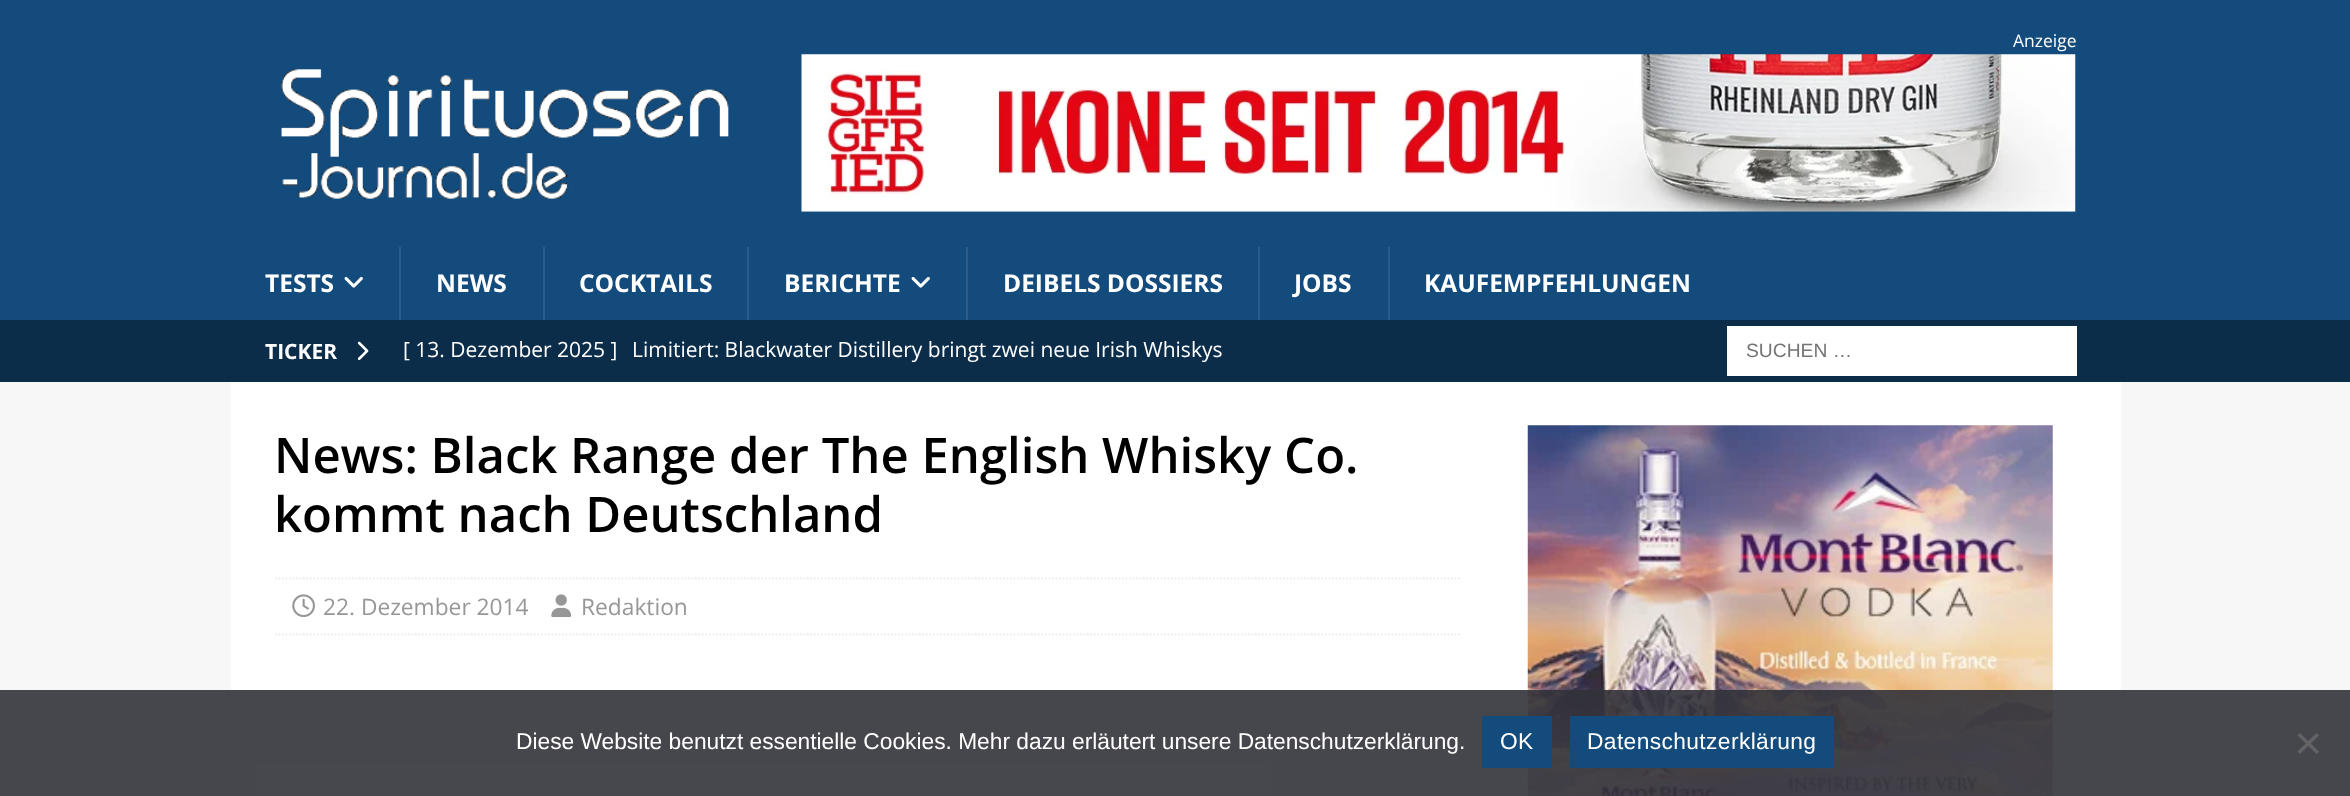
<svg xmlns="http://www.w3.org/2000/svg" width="2350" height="796">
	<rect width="100%" height="100%" fill="#F7F7F7" />
	<rect x="0" y="0" width="2350" height="320" fill="#134B7D" />
	<text x="2013" y="47" font-family="Open Sans" font-size="17.5" fill="#FFFFFF">Anzeige</text>
	<image x="801" y="54" width="1275" height="158" href="assets/img1.png" />
	<image x="281" y="69" width="448" height="130" href="assets/img2.png" />
	<text x="265" y="292" font-family="Open Sans" font-size="24.5" font-weight="700" fill="#FFFFFF">TESTS</text>
	<image x="344" y="277" width="19" height="11" href="assets/img3.png" />
	<rect x="399" y="247" width="2" height="73" fill="#2B5D8A" />
	<text x="436" y="292" font-family="Open Sans" font-size="24.5" font-weight="700" fill="#FFFFFF">NEWS</text>
	<rect x="543" y="247" width="2" height="73" fill="#2B5D8A" />
	<text x="579" y="292" font-family="Open Sans" font-size="24.5" font-weight="700" fill="#FFFFFF">COCKTAILS</text>
	<rect x="747" y="247" width="2" height="73" fill="#2B5D8A" />
	<text x="784" y="292" font-family="Open Sans" font-size="24.5" font-weight="700" fill="#FFFFFF">BERICHTE</text>
	<image x="911" y="277" width="19" height="11" href="assets/img3.png" />
	<rect x="966" y="247" width="2" height="73" fill="#2B5D8A" />
	<text x="1003" y="292" font-family="Open Sans" font-size="24.5" font-weight="700" fill="#FFFFFF">DEIBELS DOSSIERS</text>
	<rect x="1258" y="247" width="2" height="73" fill="#2B5D8A" />
	<text x="1294" y="292" font-family="Open Sans" font-size="24.5" font-weight="700" fill="#FFFFFF">JOBS</text>
	<rect x="1388" y="247" width="2" height="73" fill="#2B5D8A" />
	<text x="1424" y="292" font-family="Open Sans" font-size="24.5" font-weight="700" fill="#FFFFFF">KAUFEMPFEHLUNGEN</text>
	<rect x="0" y="320" width="2350" height="62" fill="#0B2D4A" />
	<text x="265" y="359" font-family="Open Sans" font-size="21" font-weight="700" fill="#FFFFFF">TICKER</text>
	<image x="357" y="341" width="12" height="19" href="assets/img4.png" />
	<g font-family="Open Sans" font-size="21" fill="#FFFFFF">
		<text x="403" y="357">[ 13. Dezember 2025 ]</text>
		<text x="632" y="357">Limitiert: Blackwater Distillery bringt zwei neue Irish Whiskys</text>
	</g>
	<rect x="1727" y="326" width="350" height="50" fill="#FFFFFF" />
	<text x="1746" y="357" font-family="Liberation Sans" font-size="19.25" fill="#757575">SUCHEN …</text>
	<rect x="231" y="382" width="1890" height="414" fill="#FFFFFF" />
	<g font-family="Open Sans" font-size="49" font-weight="600" fill="#000000">
		<text x="274" y="473">News: Black Range der The English Whisky Co.</text>
		<text x="274" y="532">kommt nach Deutschland</text>
	</g>
	<path d="M275 578.5H1461" fill="none" stroke="#EBEBEB" stroke-width="1.8" stroke-dasharray="1.75 1.75" />
	<path d="M275 634.5H1461" fill="none" stroke="#EBEBEB" stroke-width="1.8" stroke-dasharray="1.75 1.75" />
	<image x="292" y="594" width="23" height="24" href="assets/img5.png" />
	<text x="323" y="615" font-family="Open Sans" font-size="22.75" fill="#979797">22. Dezember 2014</text>
	<image x="551" y="594" width="21" height="24" href="assets/img6.png" />
	<text x="581" y="615" font-family="Open Sans" font-size="22.75" fill="#979797">Redaktion</text>
	<image x="1527" y="425" width="526" height="371" href="assets/img7.png" />
	<rect x="0" y="690" width="2350" height="106" fill="#32323A" fill-opacity="0.9" />
	<text x="516" y="749" font-family="Liberation Sans" font-size="22.75" fill="#FFFFFF">Diese Website benutzt essentielle Cookies. Mehr dazu erläutert unsere Datenschutzerklärung.</text>
	<rect x="1482" y="716" width="70" height="52" fill="#134B7D" />
	<text x="1500" y="749" font-family="Liberation Sans" font-size="22.75" letter-spacing="0.4" fill="#FFFFFF">OK</text>
	<rect x="1570" y="716" width="264" height="52" fill="#134B7D" />
	<text x="1587" y="749" font-family="Liberation Sans" font-size="22.75" letter-spacing="0.4" fill="#FFFFFF">Datenschutzerklärung</text>
	<path d="M2316.5 733L2319 735.5L2300 754L2297.5 751.5Z" fill="#636366" />
	<path d="M2297.5 735.5L2300 733L2319 751.5L2316.5 754Z" fill="#636366" />
</svg>
